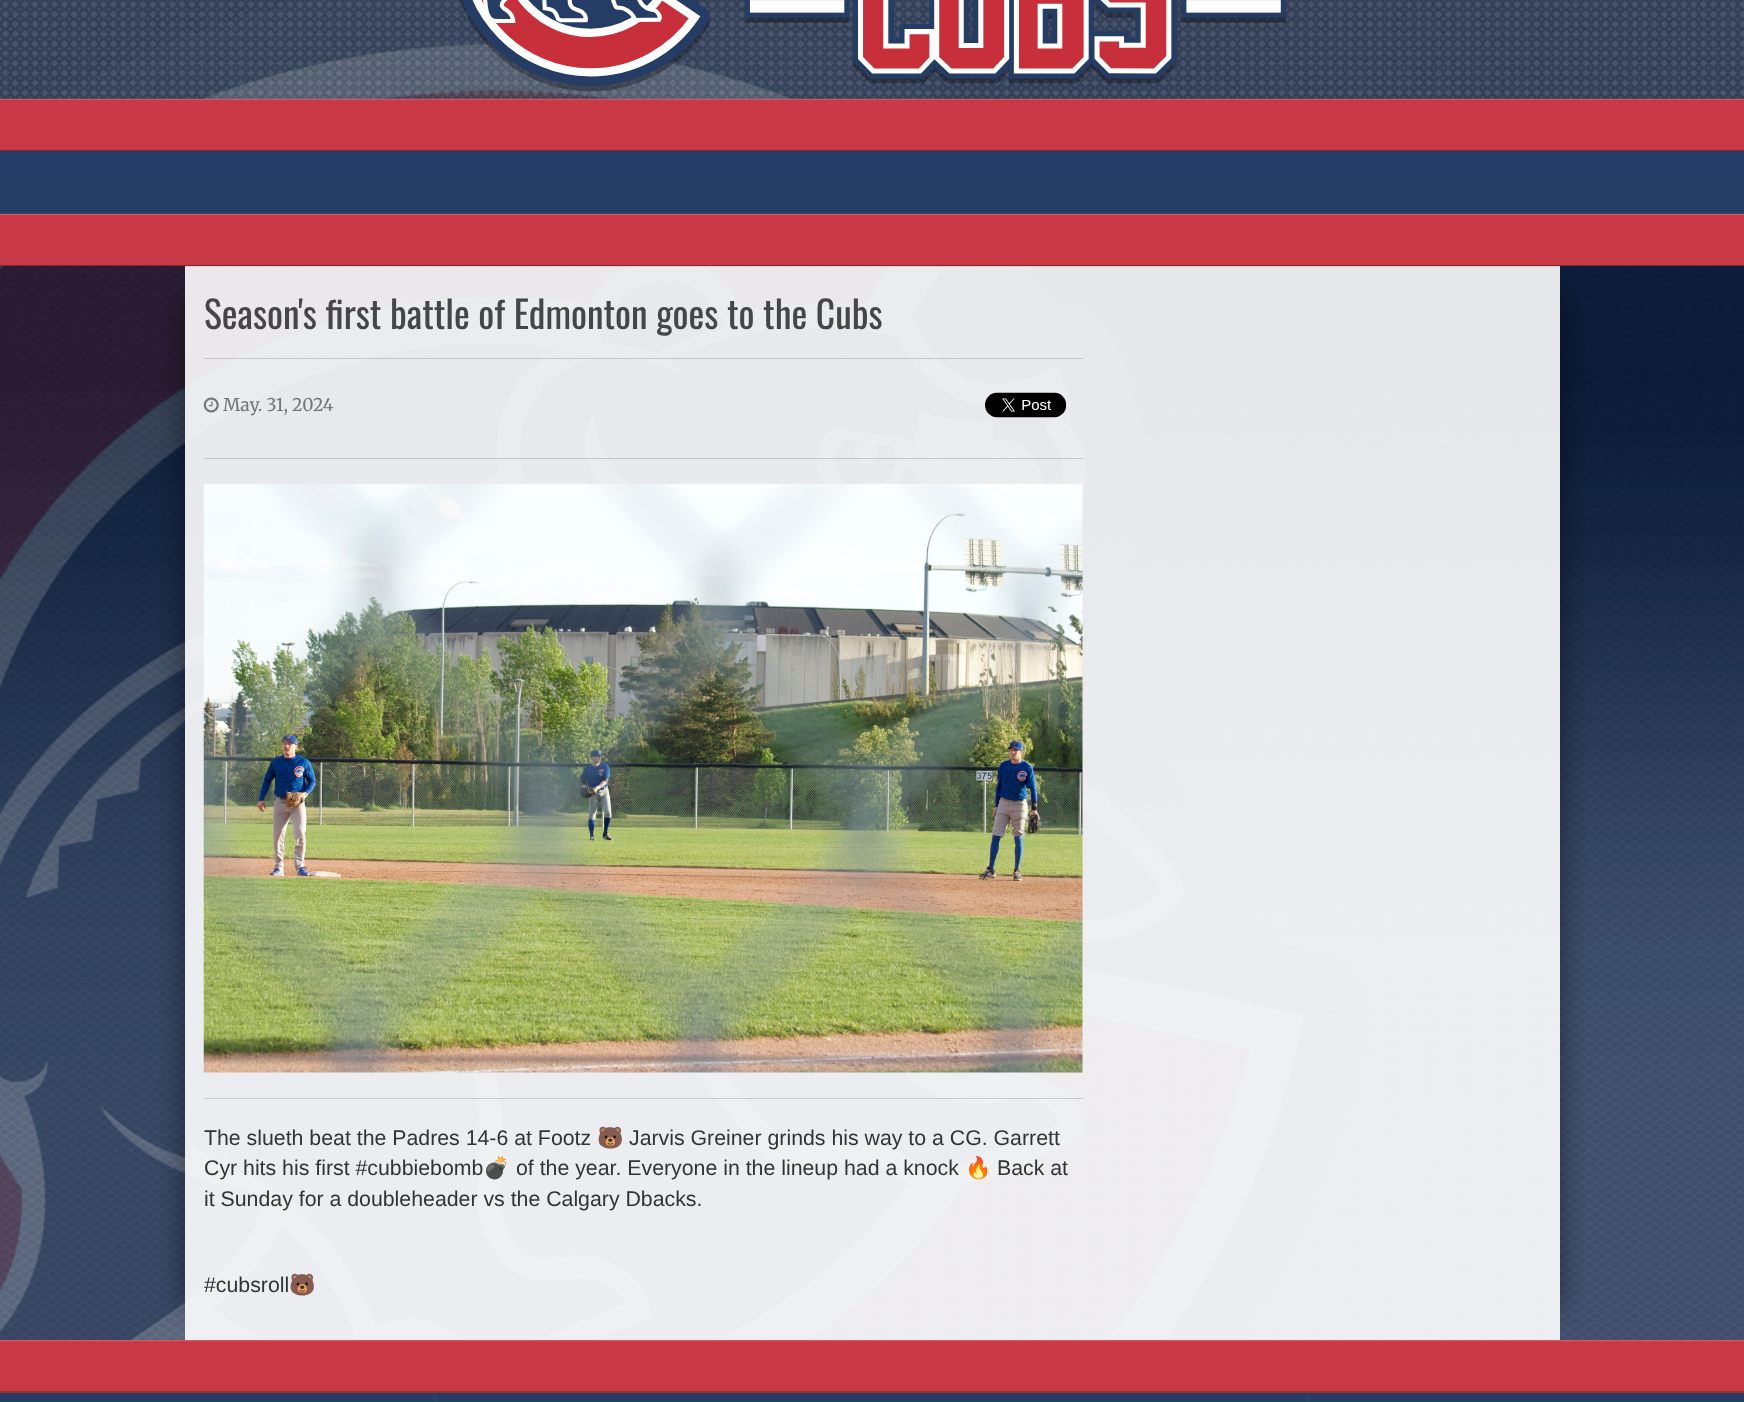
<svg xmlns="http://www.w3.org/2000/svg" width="1744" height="1402">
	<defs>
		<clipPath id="clip1"><rect x="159" y="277" width="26" height="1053" /></clipPath>
		<clipPath id="clip2"><rect x="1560" y="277" width="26" height="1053" /></clipPath>
	</defs>
	<rect width="100%" height="100%" fill="#FFFFFF" />
	<image x="0" y="0" width="1744" height="1340" href="assets/img1.png" />
	<image x="0" y="0" width="1744" height="99" href="assets/img2.png" />
	<image x="460" y="0" width="826" height="92" href="assets/img3.png" />
	<rect x="0" y="99" width="1744" height="52" fill="#C72F3B" />
	<image x="0" y="98" width="1744" height="53" href="assets/img4.png" />
	<rect x="0" y="151" width="1744" height="63" fill="#253D64" />
	<g clip-path="url(#clip1)">
		<rect x="185" y="298" width="1313" height="1011" fill="#000000" fill-opacity="0.45" filter="blur(15.5px)" />
	</g>
	<g clip-path="url(#clip2)">
		<rect x="248" y="298" width="1312" height="1011" fill="#000000" fill-opacity="0.45" filter="blur(15.5px)" />
	</g>
	<rect x="0" y="214" width="1744" height="52" fill="#C72F3B" />
	<rect x="185" y="266" width="1375" height="1074" fill="#FFFFFF" fill-opacity="0.9" />
	<image x="0" y="213" width="1744" height="54" href="assets/img5.png" />
	<text x="204" y="329" font-family="Oswald" font-size="37.6" fill="#464647">Season's first battle of Edmonton goes to the Cubs</text>
	<rect x="204" y="358" width="879" height="1" fill="#253D64" fill-opacity="0.2" />
	<image x="203" y="397" width="16" height="16" href="assets/img6.png" />
	<text x="223" y="411" font-family="Merriweather" font-size="17.5" font-weight="300" fill="#747576">May. 31, 2024</text>
	<image x="985" y="392" width="82" height="26" href="assets/img7.png" />
	<rect x="204" y="458" width="879" height="1" fill="#253D64" fill-opacity="0.2" />
	<image x="203" y="483" width="880" height="590" href="assets/img8.png" />
	<rect x="204" y="1098" width="879" height="1" fill="#253D64" fill-opacity="0.2" />
	<text x="204" y="1145" font-family="Liberation Sans" font-size="21.3" fill="#333333">The slueth beat the Padres 14-6 at Footz</text>
	<text x="597" y="1145" font-family="Noto Color Emoji" font-size="21.3" fill="#333333">🐻</text>
	<g font-family="Liberation Sans" font-size="21.3" fill="#333333">
		<text x="629" y="1145">Jarvis Greiner grinds his way to a CG. Garrett</text>
		<text x="204" y="1175">Cyr hits his first #cubbiebomb</text>
	</g>
	<text x="483" y="1175" font-family="Noto Color Emoji" font-size="21.3" fill="#333333">💣</text>
	<text x="516" y="1175" font-family="Liberation Sans" font-size="21.3" fill="#333333">of the year. Everyone in the lineup had a knock</text>
	<text x="965" y="1175" font-family="Noto Color Emoji" font-size="21.3" fill="#333333">🔥</text>
	<g font-family="Liberation Sans" font-size="21.3" fill="#333333">
		<text x="997" y="1175">Back at</text>
		<text x="204" y="1206">it Sunday for a doubleheader vs the Calgary Dbacks.</text>
		<text x="204" y="1292">#cubsroll</text>
	</g>
	<text x="289" y="1292" font-family="Noto Color Emoji" font-size="21.3" fill="#333333">🐻</text>
	<rect x="0" y="1340" width="1744" height="53" fill="#C72F3B" />
	<image x="0" y="1340" width="1744" height="53" href="assets/img9.png" />
	<rect x="0" y="1393" width="1744" height="9" fill="#253D64" />
	<path d="M435.5 1392.5V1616" fill="none" stroke="#3B5074" stroke-width="1.2" stroke-dasharray="1.25 1.25" />
	<path d="M1308 1392.5V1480" fill="none" stroke="#3B5074" stroke-width="1.2" stroke-dasharray="1.25 1.25" />
	<path d="M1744.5 1392.5V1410" fill="none" stroke="#3B5074" stroke-width="1.2" stroke-dasharray="1.25 1.25" />
</svg>
